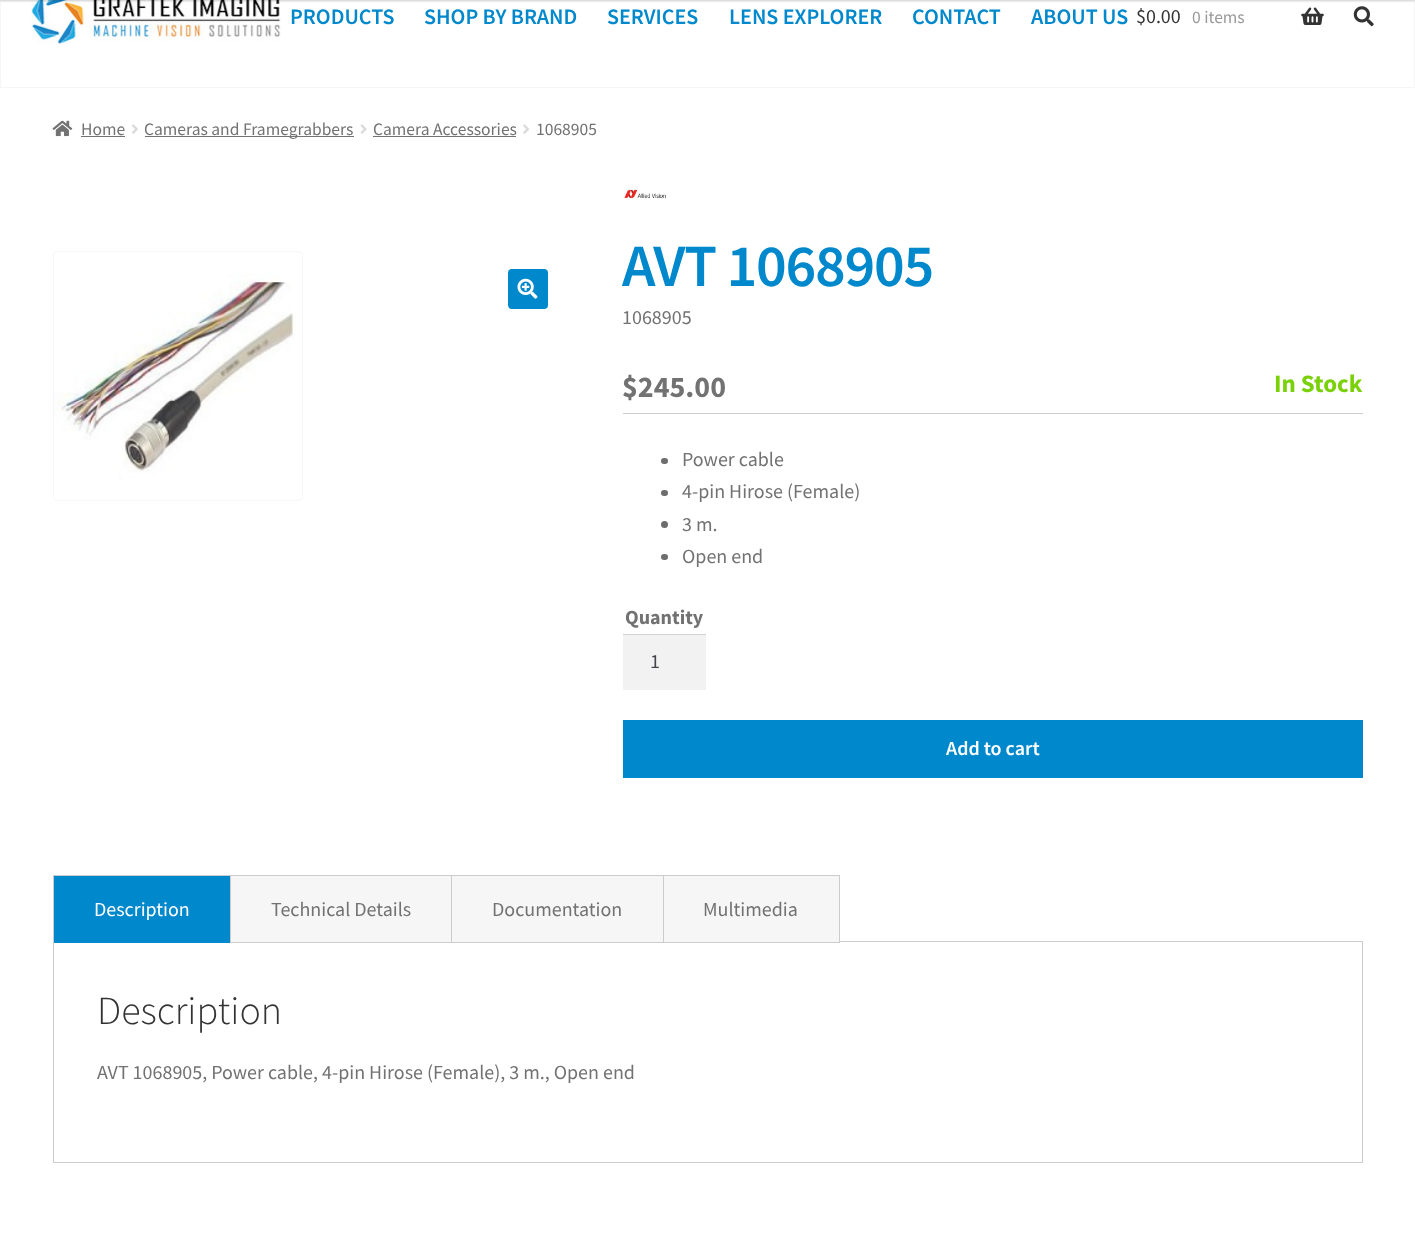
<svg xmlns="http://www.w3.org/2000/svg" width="1415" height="1236">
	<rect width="100%" height="100%" fill="#FFFFFF" />
	<rect x="0.5" y="-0.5" width="1414" height="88" fill="none" stroke="#F6F6F6" />
	<image x="31" y="0" width="250" height="44" href="assets/img1.png" />
	<rect x="0" y="-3" width="1415" height="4" fill="#000000" fill-opacity="0.2" filter="blur(1px)" />
	<g font-family="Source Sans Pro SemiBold" font-size="22" font-weight="600" fill="#0088CC">
		<text x="290" y="24">PRODUCTS</text>
		<text x="424" y="24">SHOP BY BRAND</text>
		<text x="607" y="24">SERVICES</text>
		<text x="729" y="24">LENS EXPLORER</text>
		<text x="912" y="24">CONTACT</text>
		<text x="1031" y="24">ABOUT US</text>
	</g>
	<text x="1136" y="23" font-family="Source Sans Pro" font-size="20" fill="#333333">$0.00</text>
	<text x="1192" y="23" font-family="Source Sans Pro" font-size="17.5" fill="#999999">0 items</text>
	<image x="1301" y="7" width="23" height="18" href="assets/img2.png" />
	<image x="1353" y="6" width="21" height="21" href="assets/img3.png" />
	<image x="52" y="120" width="21" height="17" href="assets/img4.png" />
	<text x="81" y="135" font-family="Source Sans Pro" font-size="17.5" fill="#727272">Home</text>
	<rect x="81" y="136" width="44" height="1" fill="#727272" />
	<image x="132" y="124" width="6" height="10" href="assets/img5.png" />
	<rect x="145" y="136" width="209" height="1" fill="#727272" />
	<text x="144" y="135" font-family="Source Sans Pro" font-size="17.5" fill="#727272">Cameras and Framegrabbers</text>
	<image x="360" y="124" width="7" height="10" href="assets/img6.png" />
	<text x="373" y="135" font-family="Source Sans Pro" font-size="17.5" fill="#727272">Camera Accessories</text>
	<rect x="373" y="136" width="143" height="1" fill="#727272" />
	<image x="523" y="124" width="6" height="10" href="assets/img7.png" />
	<text x="536" y="135" font-family="Source Sans Pro" font-size="17.5" fill="#727272">1068905</text>
	<rect x="53.5" y="251.5" width="249" height="249" rx="3.5" fill="none" stroke="#F6F6F6" />
	<image x="54" y="273" width="242" height="226" href="assets/img8.png" />
	<rect x="508" y="269" width="40" height="40" rx="4" fill="#0088CC" />
	<image x="517" y="278" width="21" height="21" href="assets/img9.png" />
	<image x="624" y="189" width="42" height="10" href="assets/img10.png" />
	<text x="622" y="286" font-family="Source Sans Pro SemiBold" font-size="60" font-weight="600" letter-spacing="-1.25" fill="#0088CC">AVT 1068905</text>
	<text x="622" y="324" font-family="Source Sans Pro" font-size="20" fill="#727272">1068905</text>
	<rect x="623" y="413" width="740" height="1" fill="#CCCCCC" />
	<text x="622" y="397" font-family="Source Sans Pro" font-size="30" font-weight="700" fill="#727272">$245.00</text>
	<text x="1274" y="392" font-family="Source Sans Pro" font-size="25" font-weight="700" fill="#7AD10A">In Stock</text>
	<rect x="661" y="458" width="7" height="6" rx="3" fill="#6D6D6D" />
	<text x="682" y="466" font-family="Source Sans Pro" font-size="20" fill="#727272">Power cable</text>
	<rect x="661" y="490" width="7" height="6" rx="3" fill="#6D6D6D" />
	<text x="682" y="498" font-family="Source Sans Pro" font-size="20" fill="#727272">4-pin Hirose (Female)</text>
	<circle cx="664.5" cy="524.5" r="3.5" fill="#6D6D6D" />
	<text x="682" y="531" font-family="Source Sans Pro" font-size="20" fill="#727272">3 m.</text>
	<rect x="661" y="554" width="7" height="6" rx="3" fill="#6D6D6D" />
	<text x="682" y="563" font-family="Source Sans Pro" font-size="20" fill="#727272">Open end</text>
	<text x="625" y="624" font-family="Source Sans Pro" font-size="20" font-weight="700" fill="#727272">Quantity</text>
	<rect x="623" y="635" width="83" height="55" fill="#F2F2F2" />
	<rect x="623" y="634" width="83" height="1" fill="#D4D4D4" />
	<text x="650" y="668" font-family="Source Sans Pro" font-size="20" fill="#43454B">1</text>
	<rect x="623" y="720" width="740" height="58" fill="#0088CC" />
	<text x="946" y="755" font-family="Source Sans Pro SemiBold" font-size="20" font-weight="600" fill="#FFFFFF">Add to cart</text>
	<rect x="53.5" y="941.5" width="1309" height="221" fill="none" stroke="#CCCCCC" />
	<rect x="54" y="876" width="176" height="67" fill="#0088CC" />
	<text x="94" y="916" font-family="Source Sans Pro" font-size="20" fill="#FFFFFF">Description</text>
	<rect x="53" y="875" width="178" height="1" fill="#CCCCCC" />
	<rect x="53" y="941" width="178" height="1" fill="#0088CC" />
	<rect x="53" y="875" width="1" height="68" fill="#CCCCCC" />
	<rect x="231" y="876" width="220" height="66" fill="#F6F6F6" />
	<rect x="230.5" y="875.5" width="222" height="67" fill="none" stroke="#CCCCCC" />
	<text x="271" y="916" font-family="Source Sans Pro" font-size="20" fill="#727272">Technical Details</text>
	<rect x="451.5" y="875.5" width="212" height="67" fill="#F6F6F6" stroke="#CCCCCC" />
	<text x="492" y="916" font-family="Source Sans Pro" font-size="20" fill="#727272">Documentation</text>
	<rect x="663.5" y="875.5" width="176" height="67" fill="#F6F6F6" stroke="#CCCCCC" />
	<text x="703" y="916" font-family="Source Sans Pro" font-size="20" fill="#727272">Multimedia</text>
	<text x="97" y="1024" font-family="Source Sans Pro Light" font-size="40" font-weight="300" fill="#333333">Description</text>
	<text x="97" y="1079" font-family="Source Sans Pro" font-size="20" fill="#727272">AVT 1068905, Power cable, 4-pin Hirose (Female), 3 m., Open end</text>
</svg>
